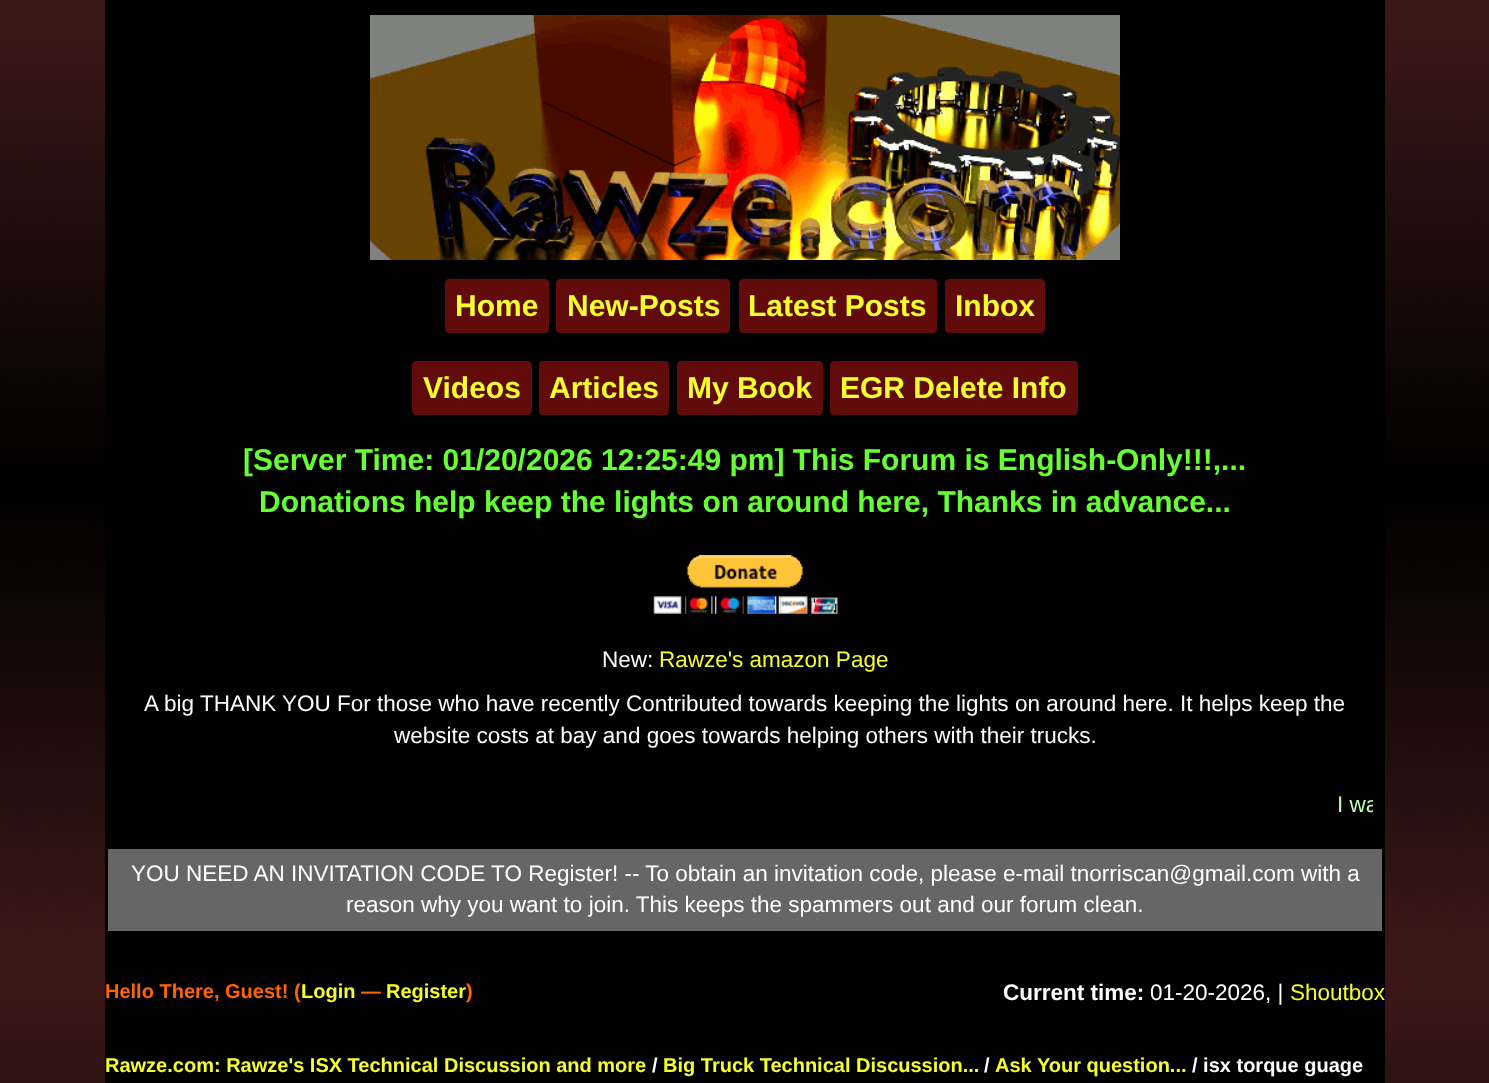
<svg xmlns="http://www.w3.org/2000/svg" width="1489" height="1083">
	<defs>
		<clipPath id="clip1"><rect x="118" y="789" width="1255" height="32" /></clipPath>
	</defs>
	<rect width="100%" height="100%" fill="#FFFFFF" />
	<image x="0" y="0" width="1489" height="1083" href="assets/img1.png" />
	<rect x="105" y="0" width="1280" height="1083" fill="#000000" />
	<image x="370" y="15" width="750" height="245" href="assets/img2.png" />
	<rect x="444.5" y="278.5" width="105" height="55" rx="4.5" fill="#610B0B" stroke="#000000" />
	<text x="455" y="316" font-family="Liberation Sans" font-size="30" font-weight="700" fill="#F7FE2E">Home</text>
	<rect x="555.5" y="278.5" width="175" height="55" rx="4.5" fill="#610B0B" stroke="#000000" />
	<text x="567" y="316" font-family="Liberation Sans" font-size="30" font-weight="700" fill="#F7FE2E">New-Posts</text>
	<rect x="738.5" y="278.5" width="199" height="55" rx="4.5" fill="#610B0B" stroke="#000000" />
	<text x="748" y="316" font-family="Liberation Sans" font-size="30" font-weight="700" fill="#F7FE2E">Latest Posts</text>
	<rect x="944.5" y="278.5" width="101" height="55" rx="4.5" fill="#610B0B" stroke="#000000" />
	<text x="955" y="316" font-family="Liberation Sans" font-size="30" font-weight="700" fill="#F7FE2E">Inbox</text>
	<rect x="411.5" y="360.5" width="121" height="55" rx="4.5" fill="#610B0B" stroke="#000000" />
	<text x="423" y="398" font-family="Liberation Sans" font-size="30" font-weight="700" fill="#F7FE2E">Videos</text>
	<rect x="538.5" y="360.5" width="131" height="55" rx="4.5" fill="#610B0B" stroke="#000000" />
	<text x="549" y="398" font-family="Liberation Sans" font-size="30" font-weight="700" fill="#F7FE2E">Articles</text>
	<rect x="676.5" y="360.5" width="147" height="55" rx="4.5" fill="#610B0B" stroke="#000000" />
	<text x="687" y="398" font-family="Liberation Sans" font-size="30" font-weight="700" fill="#F7FE2E">My Book</text>
	<rect x="829.5" y="360.5" width="249" height="55" rx="4.5" fill="#610B0B" stroke="#000000" />
	<text x="840" y="398" font-family="Liberation Sans" font-size="30" font-weight="700" fill="#F7FE2E">EGR Delete Info</text>
	<g font-family="Liberation Sans" font-size="30" font-weight="700" fill="#66FF33">
		<text x="243" y="470">[Server Time: 01/20/2026 12:25:49 pm] This Forum is English-Only!!!,...</text>
		<text x="259" y="512">Donations help keep the lights on around here, Thanks in advance...</text>
	</g>
	<image x="653" y="555" width="185" height="59" href="assets/img3.png" />
	<text x="602" y="667" font-family="Liberation Sans" font-size="22.5" fill="#FFFFFF">New:</text>
	<text x="659" y="667" font-family="Liberation Sans" font-size="22.5" fill="#F7FE2E">Rawze's amazon Page</text>
	<g font-family="Liberation Sans" font-size="22.5" fill="#FFFFFF">
		<text x="144" y="711">A big THANK YOU For those who have recently Contributed towards keeping the lights on around here. It helps keep the</text>
		<text x="394" y="743">website costs at bay and goes towards helping others with their trucks.</text>
	</g>
	<g clip-path="url(#clip1)">
		<text x="1337" y="812" font-family="Liberation Sans" font-size="22.5" fill="#BCFEAF">I wa</text>
	</g>
	<rect x="108" y="849" width="1274" height="82" fill="#666666" />
	<g font-family="Liberation Sans" font-size="22.5" fill="#FFFFFF">
		<text x="131" y="881">YOU NEED AN INVITATION CODE TO Register! -- To obtain an invitation code, please e-mail tnorriscan@gmail.com with a</text>
		<text x="346" y="912">reason why you want to join. This keeps the spammers out and our forum clean.</text>
	</g>
	<text x="105" y="998" font-family="Liberation Sans" font-size="20" font-weight="700" fill="#FF6600">Hello There, Guest! (</text>
	<text x="301" y="998" font-family="Liberation Sans" font-size="20" font-weight="700" fill="#F7FE2E">Login</text>
	<text x="361" y="998" font-family="Liberation Sans" font-size="20" font-weight="700" fill="#FF6600">—</text>
	<text x="386" y="998" font-family="Liberation Sans" font-size="20" font-weight="700" fill="#F7FE2E">Register</text>
	<text x="466" y="998" font-family="Liberation Sans" font-size="20" font-weight="700" fill="#FF6600">)</text>
	<text x="1003" y="1000" font-family="Liberation Sans" font-size="22.5" font-weight="700" fill="#FFFFFF">Current time:</text>
	<text x="1150" y="1000" font-family="Liberation Sans" font-size="22.5" fill="#FFFFFF">01-20-2026, |</text>
	<text x="1290" y="1000" font-family="Liberation Sans" font-size="22.5" fill="#F7FE2E">Shoutbox</text>
	<text x="105" y="1072" font-family="Liberation Sans" font-size="20" font-weight="700" fill="#F7FE2E">Rawze.com: Rawze's ISX Technical Discussion and more</text>
	<text x="652" y="1072" font-family="Liberation Sans" font-size="20" font-weight="700" fill="#FFFFFF">/</text>
	<text x="663" y="1072" font-family="Liberation Sans" font-size="20" font-weight="700" fill="#F7FE2E">Big Truck Technical Discussion...</text>
	<text x="984" y="1072" font-family="Liberation Sans" font-size="20" font-weight="700" fill="#FFFFFF">/</text>
	<text x="995" y="1072" font-family="Liberation Sans" font-size="20" font-weight="700" fill="#F7FE2E">Ask Your question...</text>
	<text x="1192" y="1072" font-family="Liberation Sans" font-size="20" font-weight="700" fill="#FFFFFF">/ isx torque guage</text>
</svg>
